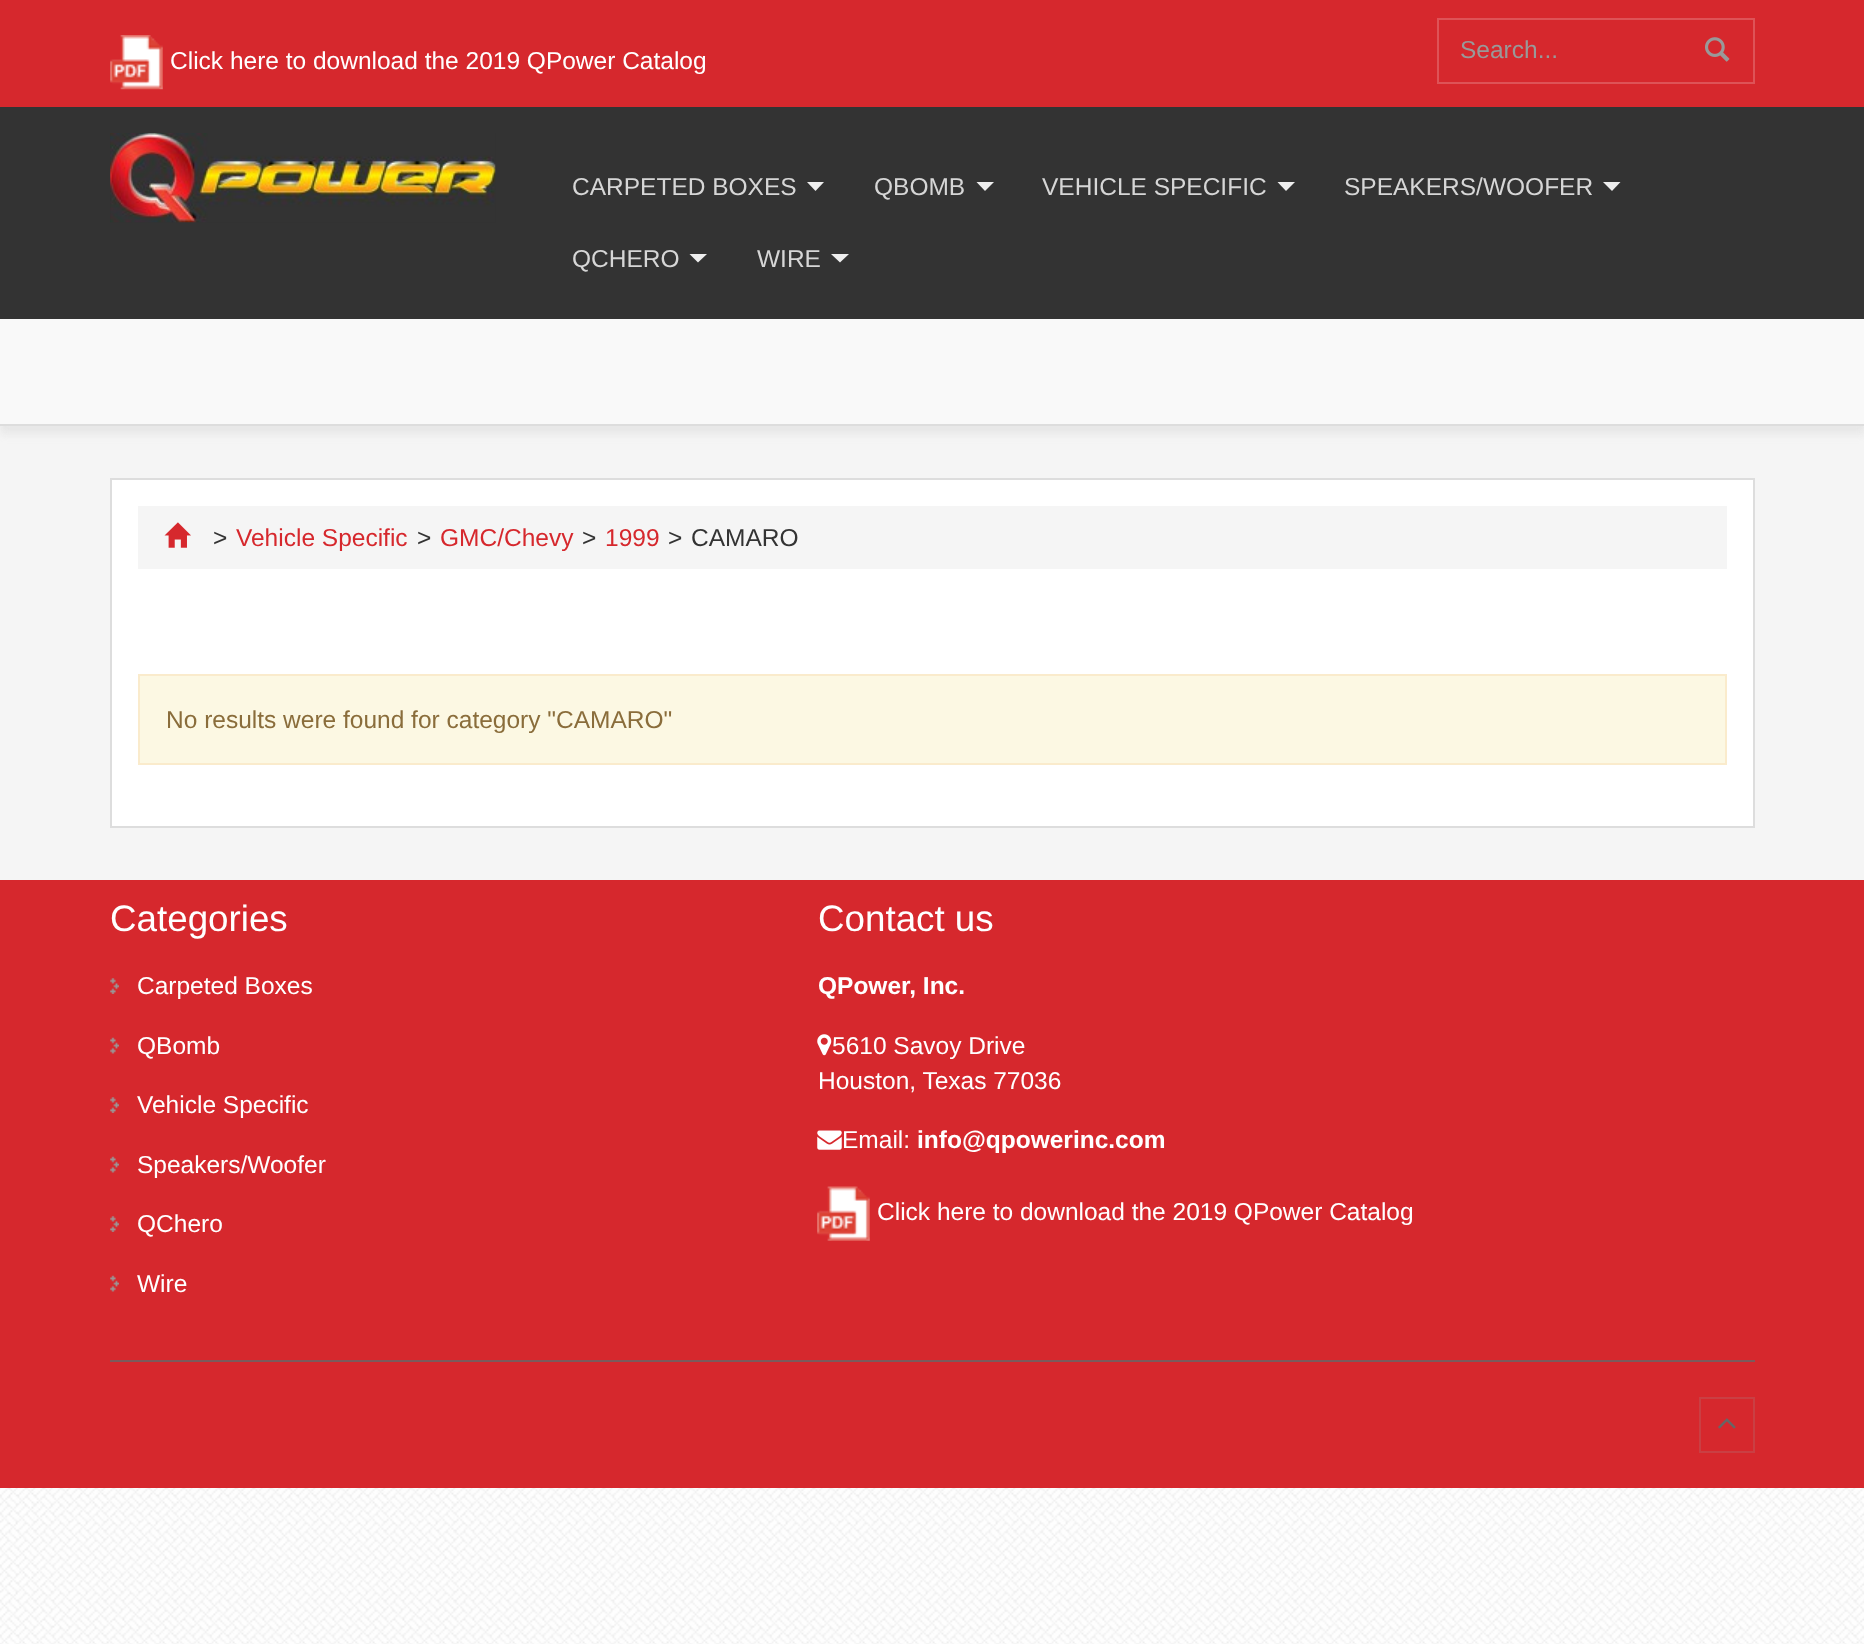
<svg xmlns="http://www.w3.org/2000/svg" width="1864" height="1644">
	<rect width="100%" height="100%" fill="#FFFFFF" />
	<image x="0" y="1488" width="1864" height="156" href="assets/img1.png" />
	<rect x="0" y="426" width="1864" height="454" fill="#F5F5F5" />
	<rect x="0" y="9" width="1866" height="425" fill="#C8C8C8" fill-opacity="0.3" filter="blur(4.5px)" />
	<rect x="0" y="424" width="1864" height="2" fill="#DDDDDD" />
	<rect x="0" y="0" width="1864" height="107" fill="#D6282D" />
	<image x="110" y="35" width="53" height="55" href="assets/img2.png" />
	<text x="170" y="69" font-family="Liberation Sans" font-size="24.5" fill="#FFFFFF">Click here to download the 2019 QPower Catalog</text>
	<rect x="1438" y="19" width="316" height="64" fill="none" stroke="#DE5357" stroke-width="2" />
	<text x="1460" y="58" font-family="Liberation Sans" font-size="24.5" fill="#999999">Search...</text>
	<image x="1705" y="37" width="25" height="25" href="assets/img3.png" />
	<rect x="0" y="107" width="1864" height="212" fill="#333333" />
	<rect x="0" y="319" width="1864" height="105" fill="#F9F9F9" />
	<image x="110" y="133" width="386" height="90" href="assets/img4.png" />
	<text x="572" y="195" font-family="Liberation Sans" font-size="24.5" fill="#D6D6D6">CARPETED BOXES</text>
	<path d="M807 182H824L815.5 191Z" fill="#EEEEEE" />
	<text x="874" y="195" font-family="Liberation Sans" font-size="24.5" fill="#D6D6D6">QBOMB</text>
	<path d="M976.5 182H994L985 191Z" fill="#EEEEEE" />
	<text x="1042" y="195" font-family="Liberation Sans" font-size="24.5" fill="#D6D6D6">VEHICLE SPECIFIC</text>
	<path d="M1277.5 182H1295L1286 191Z" fill="#EEEEEE" />
	<text x="1344" y="195" font-family="Liberation Sans" font-size="24.5" fill="#D6D6D6">SPEAKERS/WOOFER</text>
	<path d="M1603 182H1620.5L1612 191Z" fill="#EEEEEE" />
	<text x="572" y="267" font-family="Liberation Sans" font-size="24.5" fill="#D6D6D6">QCHERO</text>
	<path d="M689.5 254H707L698 262.5Z" fill="#EEEEEE" />
	<text x="757" y="267" font-family="Liberation Sans" font-size="24.5" fill="#D6D6D6">WIRE</text>
	<path d="M831 254H849L840 262.5Z" fill="#EEEEEE" />
	<rect x="111" y="479" width="1643" height="348" fill="#FFFFFF" stroke="#DDDDDD" stroke-width="2" />
	<rect x="138" y="506" width="1589" height="63" fill="#F5F5F5" />
	<image x="164" y="522" width="27" height="26" href="assets/img5.png" />
	<text x="213" y="546" font-family="Liberation Sans" font-size="24.5" fill="#333333">&gt;</text>
	<text x="236" y="546" font-family="Liberation Sans" font-size="24.5" fill="#D6282D">Vehicle Specific</text>
	<text x="417" y="546" font-family="Liberation Sans" font-size="24.5" fill="#333333">&gt;</text>
	<text x="440" y="546" font-family="Liberation Sans" font-size="24.5" fill="#D6282D">GMC/Chevy</text>
	<text x="582" y="546" font-family="Liberation Sans" font-size="24.5" fill="#333333">&gt;</text>
	<text x="605" y="546" font-family="Liberation Sans" font-size="24.5" fill="#D6282D">1999</text>
	<g font-family="Liberation Sans" font-size="24.5" fill="#333333">
		<text x="668" y="546">&gt;</text>
		<text x="691" y="546">CAMARO</text>
	</g>
	<rect x="139" y="675" width="1587" height="89" fill="#FCF8E3" stroke="#FAEBCC" stroke-width="2" />
	<text x="166" y="728" font-family="Liberation Sans" font-size="24.5" fill="#8A6D3B">No results were found for category "CAMARO"</text>
	<rect x="0" y="880" width="1864" height="608" fill="#D6282D" />
	<text x="110" y="931" font-family="Liberation Sans" font-size="36.75" fill="#FFFFFF">Categories</text>
	<image x="110" y="978" width="9" height="16" href="assets/img6.png" />
	<text x="137" y="994" font-family="Liberation Sans" font-size="24.5" fill="#FFFFFF">Carpeted Boxes</text>
	<image x="110" y="1037" width="9" height="17" href="assets/img7.png" />
	<text x="137" y="1054" font-family="Liberation Sans" font-size="24.5" fill="#FFFFFF">QBomb</text>
	<image x="110" y="1097" width="9" height="16" href="assets/img6.png" />
	<text x="137" y="1113" font-family="Liberation Sans" font-size="24.5" fill="#FFFFFF">Vehicle Specific</text>
	<image x="110" y="1156" width="9" height="17" href="assets/img7.png" />
	<text x="137" y="1173" font-family="Liberation Sans" font-size="24.5" fill="#FFFFFF">Speakers/Woofer</text>
	<image x="110" y="1216" width="9" height="16" href="assets/img6.png" />
	<text x="137" y="1232" font-family="Liberation Sans" font-size="24.5" fill="#FFFFFF">QChero</text>
	<image x="110" y="1275" width="9" height="17" href="assets/img7.png" />
	<text x="137" y="1292" font-family="Liberation Sans" font-size="24.5" fill="#FFFFFF">Wire</text>
	<text x="818" y="931" font-family="Liberation Sans" font-size="36.75" fill="#FFFFFF">Contact us</text>
	<text x="818" y="994" font-family="Liberation Sans" font-size="24.5" font-weight="700" fill="#FFFFFF">QPower, Inc.</text>
	<image x="817" y="1034" width="15" height="22" href="assets/img8.png" />
	<g font-family="Liberation Sans" font-size="24.5" fill="#FFFFFF">
		<text x="832" y="1054">5610 Savoy Drive</text>
		<text x="818" y="1089">Houston, Texas 77036</text>
	</g>
	<image x="817" y="1130" width="25" height="20" href="assets/img9.png" />
	<text x="842" y="1148" font-family="Liberation Sans" font-size="24.5" fill="#FFFFFF">Email:</text>
	<text x="917" y="1148" font-family="Liberation Sans" font-size="24.5" font-weight="700" fill="#FFFFFF">info@qpowerinc.com</text>
	<image x="817" y="1186" width="53" height="55" href="assets/img10.png" />
	<text x="877" y="1220" font-family="Liberation Sans" font-size="24.5" fill="#FFFFFF">Click here to download the 2019 QPower Catalog</text>
	<rect x="110" y="1360" width="1645" height="2" fill="#7C5A5B" />
	<rect x="1700" y="1398" width="54" height="54" fill="none" stroke="#CA3F43" stroke-width="2" />
	<image x="1718" y="1418" width="18" height="11" href="assets/img11.png" />
</svg>
